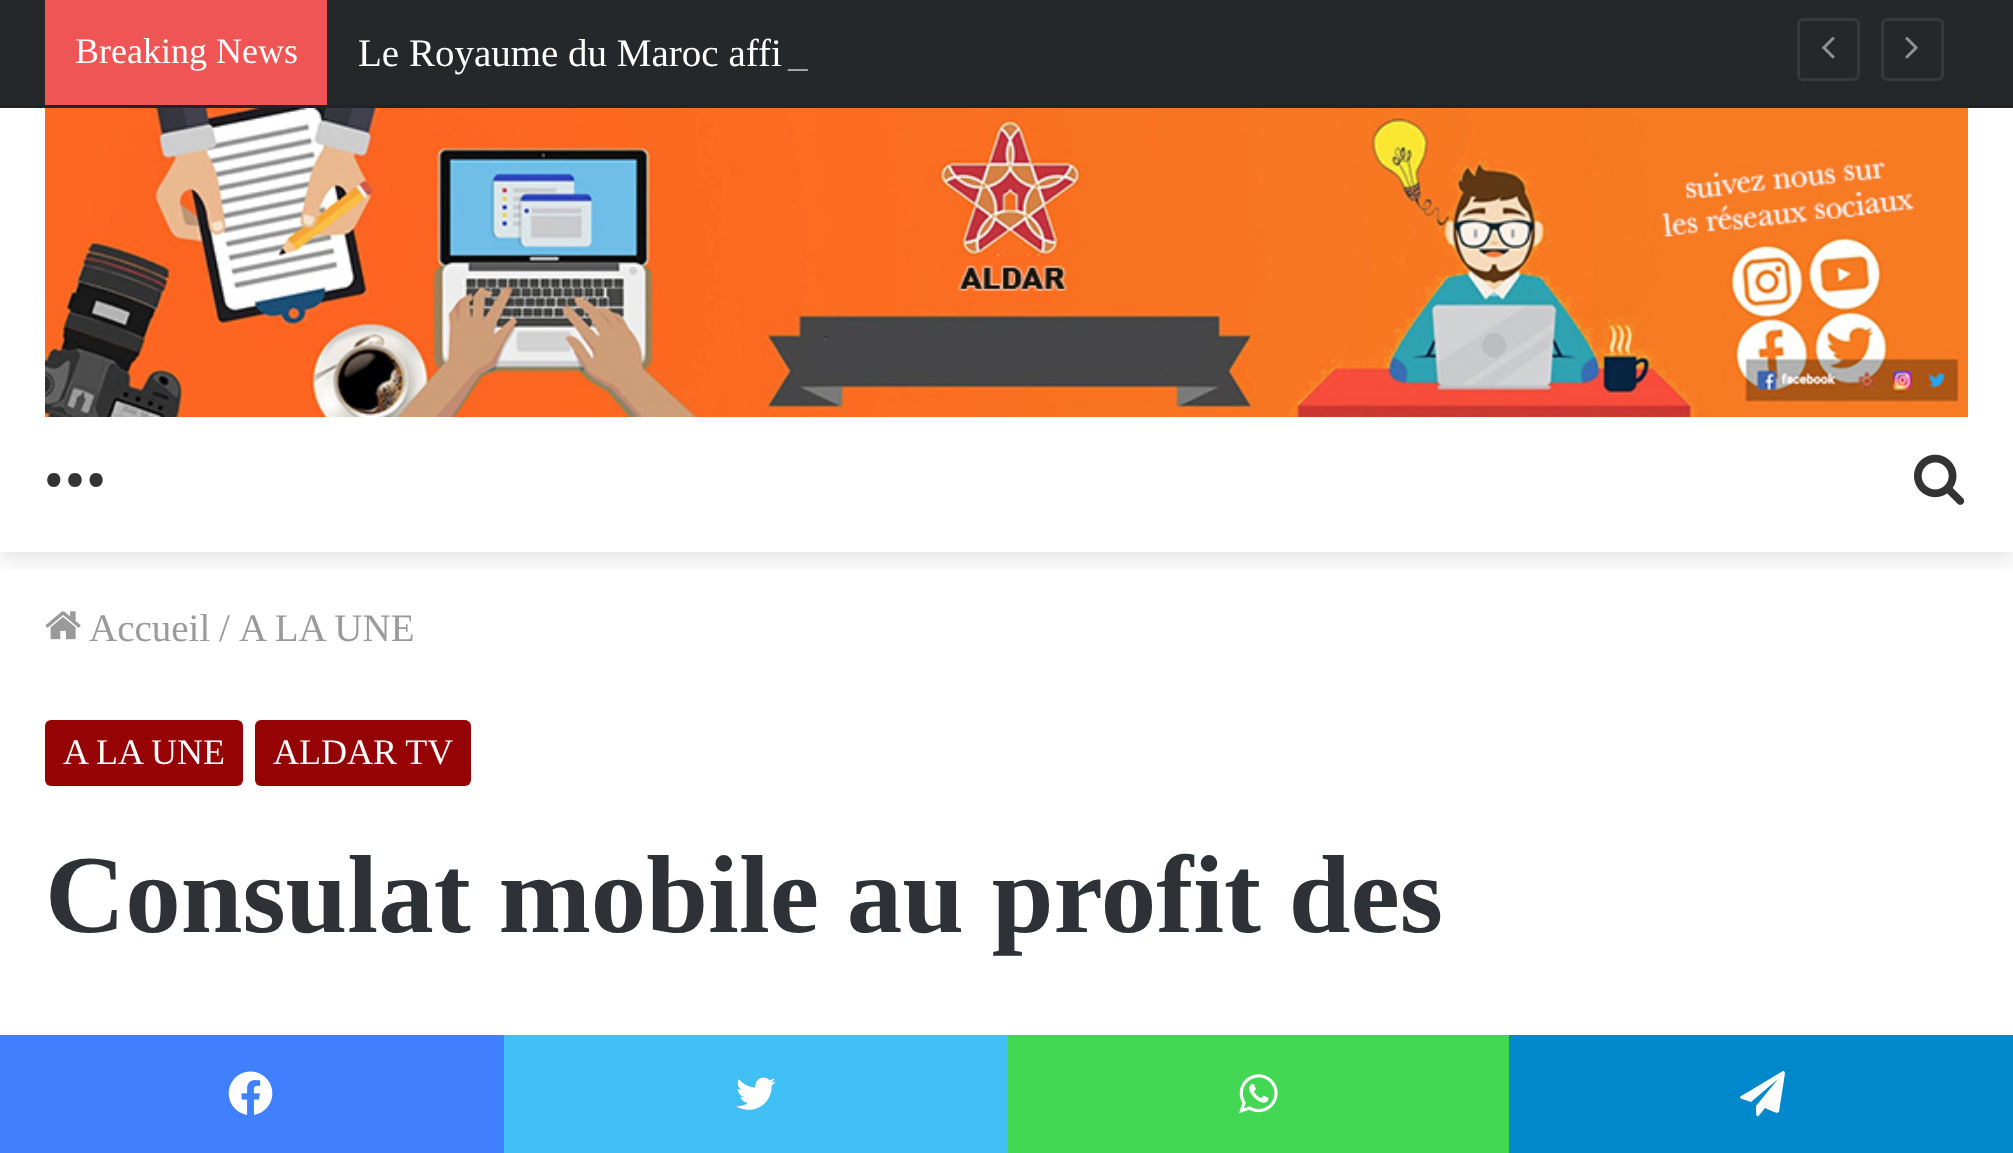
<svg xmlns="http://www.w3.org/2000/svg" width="2013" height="1153">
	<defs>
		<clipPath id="clip1"><rect x="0" y="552" width="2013" height="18" /></clipPath>
	</defs>
	<rect width="100%" height="100%" fill="#FFFFFF" />
	<g clip-path="url(#clip1)">
		<rect x="0" y="117" width="2013" height="444" fill="#000000" fill-opacity="0.1" filter="blur(10.5px)" />
	</g>
	<rect x="0" y="0" width="2013" height="105" fill="#25282B" />
	<rect x="0" y="105" width="2013" height="3" fill="#212427" />
	<rect x="45" y="0" width="282" height="105" fill="#F05555" />
	<text x="75" y="63" font-family="Liberation Serif" font-size="36" fill="#FFFFFF">Breaking News</text>
	<text x="358" y="66" font-family="Liberation Serif" font-size="39" fill="#FFFFFF">Le Royaume du Maroc affi</text>
	<text x="788" y="66" font-family="Liberation Serif" font-size="39" fill="#AAAAAA">_</text>
	<rect x="1798.5" y="19.5" width="60" height="60" rx="4.5" fill="none" stroke="#36393C" stroke-width="3" />
	<image x="1822" y="36" width="13" height="23" href="assets/img1.png" />
	<rect x="1882.5" y="19.5" width="60" height="60" rx="4.5" fill="none" stroke="#36393C" stroke-width="3" />
	<image x="1905" y="36" width="13" height="23" href="assets/img2.png" />
	<image x="45" y="108" width="1923" height="309" href="assets/img3.png" />
	<path d="M75 473C66 473 66 487 75 487C84 487 84 473 75 473ZM54 473C45 473 45 487 54 487C62 487 63 473 54 473ZM96 473C87 473 88 487 96 487C105 487 105 473 96 473Z" fill="#333333" />
	<image x="1914" y="454" width="51" height="51" href="assets/img4.png" />
	<image x="45" y="611" width="36" height="29" href="assets/img5.png" />
	<g font-family="Liberation Serif" font-size="39" fill="#9A9A9A">
		<text x="89" y="641">Accueil</text>
		<text x="219" y="641">/</text>
		<text x="239" y="641">A LA UNE</text>
	</g>
	<rect x="45" y="720" width="198" height="66" rx="6" fill="#960304" />
	<text x="63" y="764" font-family="Liberation Serif" font-size="36" fill="#FFFFFF">A LA UNE</text>
	<rect x="255" y="720" width="216" height="66" rx="6" fill="#960304" />
	<text x="273" y="764" font-family="Liberation Serif" font-size="36" fill="#FFFFFF">ALDAR TV</text>
	<text x="45" y="932" font-family="Liberation Serif" font-size="111" font-weight="700" fill="#2E3136">Consulat mobile au profit des</text>
	<rect x="0" y="1035" width="504" height="118" fill="#4080FF" />
	<image x="228" y="1071" width="45" height="44" href="assets/img6.png" />
	<rect x="504" y="1035" width="504" height="118" fill="#40BFF5" />
	<image x="736" y="1077" width="40" height="33" href="assets/img7.png" />
	<rect x="1008" y="1035" width="501" height="118" fill="#43D854" />
	<image x="1239" y="1074" width="39" height="40" href="assets/img8.png" />
	<rect x="1509" y="1035" width="504" height="118" fill="#0088CC" />
	<path d="M1784 1071C1786 1073 1784 1077 1784 1080L1780 1105C1779 1112 1780 1114 1774 1112L1765 1108C1757 1118 1756 1121 1756 1106L1778 1079L1751 1102C1738 1097 1736 1099 1748 1092L1783 1071Z" fill="#FFFFFF" />
</svg>
